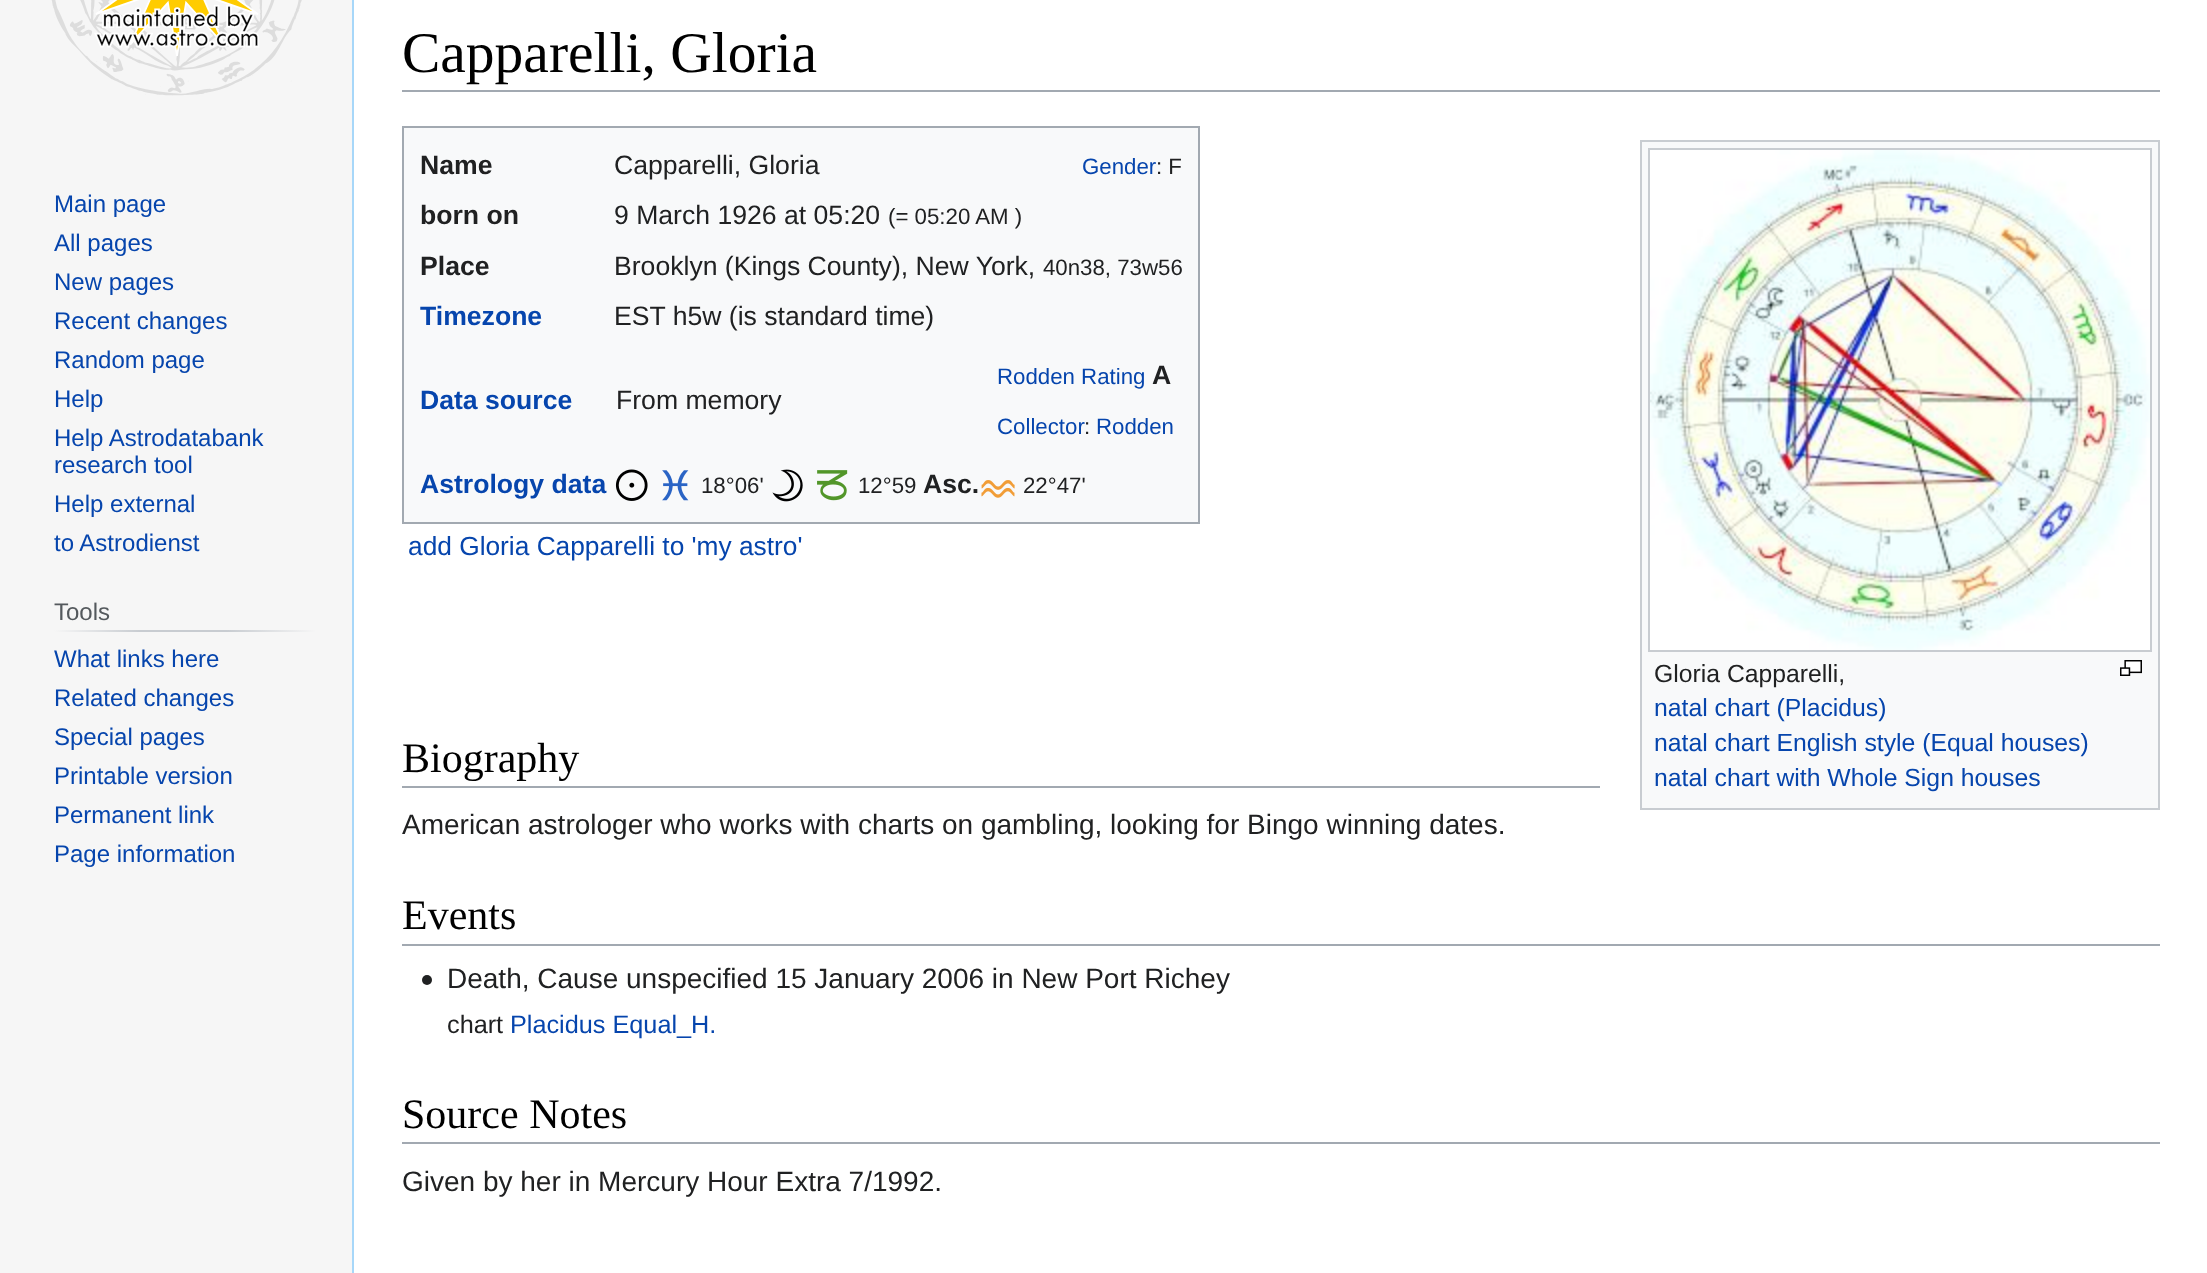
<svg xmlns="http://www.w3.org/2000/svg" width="2207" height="1273">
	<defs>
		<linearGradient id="g1" gradientUnits="userSpaceOnUse" x1="54" y1="631" x2="316" y2="631"><stop offset="0" stop-color="#F6F6F6" /><stop offset="0.33" stop-color="#C8CCD1" /><stop offset="0.66" stop-color="#C8CCD1" /><stop offset="1" stop-color="#F6F6F6" /></linearGradient>
	</defs>
	<rect width="100%" height="100%" fill="#F6F6F6" />
	<image x="51" y="0" width="251" height="96" href="assets/img1.png" />
	<g font-family="Liberation Sans" font-size="24" fill="#0645AD">
		<text x="54" y="212">Main page</text>
		<text x="54" y="251">All pages</text>
		<text x="54" y="290">New pages</text>
		<text x="54" y="329">Recent changes</text>
		<text x="54" y="368">Random page</text>
		<text x="54" y="407">Help</text>
		<text x="54" y="446">Help Astrodatabank</text>
		<text x="54" y="473">research tool</text>
		<text x="54" y="512">Help external</text>
		<text x="54" y="551">to Astrodienst</text>
	</g>
	<rect x="54" y="630" width="262" height="2" fill="url(#g1)" />
	<text x="54" y="620" font-family="Liberation Sans" font-size="24" fill="#54595D">Tools</text>
	<g font-family="Liberation Sans" font-size="24" fill="#0645AD">
		<text x="54" y="667">What links here</text>
		<text x="54" y="706">Related changes</text>
		<text x="54" y="745">Special pages</text>
		<text x="54" y="784">Printable version</text>
		<text x="54" y="823">Permanent link</text>
		<text x="54" y="862">Page information</text>
	</g>
	<rect x="354" y="0" width="1853" height="1273" fill="#FFFFFF" />
	<rect x="352" y="0" width="2" height="1273" fill="#A7D7F9" />
	<rect x="402" y="90" width="1758" height="2" fill="#A2A9B1" />
	<text x="402" y="72" font-family="Liberation Serif" font-size="57.5" fill="#000000">Capparelli, Gloria</text>
	<rect x="403" y="127" width="796" height="396" fill="#F8F9FA" stroke="#A2A9B1" stroke-width="2" />
	<text x="420" y="174" font-family="Liberation Sans" font-size="26.6" font-weight="700" fill="#202122">Name</text>
	<text x="614" y="174" font-family="Liberation Sans" font-size="26.6" fill="#202122">Capparelli, Gloria</text>
	<text x="1082" y="174" font-family="Liberation Sans" font-size="22.25" fill="#0645AD">Gender</text>
	<text x="1156" y="174" font-family="Liberation Sans" font-size="22.25" fill="#202122">: F</text>
	<text x="420" y="224" font-family="Liberation Sans" font-size="26.6" font-weight="700" fill="#202122">born on</text>
	<text x="614" y="224" font-family="Liberation Sans" font-size="26.6" fill="#202122">9 March 1926 at 05:20</text>
	<text x="888" y="224" font-family="Liberation Sans" font-size="22.25" fill="#202122">(= 05:20 AM )</text>
	<text x="420" y="275" font-family="Liberation Sans" font-size="26.6" font-weight="700" fill="#202122">Place</text>
	<text x="614" y="275" font-family="Liberation Sans" font-size="26.6" fill="#202122">Brooklyn (Kings County), New York,</text>
	<text x="1043" y="275" font-family="Liberation Sans" font-size="22.25" fill="#202122">40n38, 73w56</text>
	<text x="420" y="325" font-family="Liberation Sans" font-size="26.6" font-weight="700" fill="#0645AD">Timezone</text>
	<text x="614" y="325" font-family="Liberation Sans" font-size="26.6" fill="#202122">EST h5w (is standard time)</text>
	<text x="420" y="409" font-family="Liberation Sans" font-size="26.6" font-weight="700" fill="#0645AD">Data source</text>
	<text x="616" y="409" font-family="Liberation Sans" font-size="26.6" fill="#202122">From memory</text>
	<text x="997" y="384" font-family="Liberation Sans" font-size="22.25" fill="#0645AD">Rodden Rating</text>
	<text x="1152" y="384" font-family="Liberation Sans" font-size="26.6" font-weight="700" fill="#202122">A</text>
	<text x="997" y="434" font-family="Liberation Sans" font-size="22.25" fill="#0645AD">Collector</text>
	<text x="1084" y="434" font-family="Liberation Sans" font-size="22.25" fill="#202122">:</text>
	<text x="1096" y="434" font-family="Liberation Sans" font-size="22.25" fill="#0645AD">Rodden</text>
	<text x="420" y="493" font-family="Liberation Sans" font-size="26.6" font-weight="700" fill="#0645AD">Astrology data</text>
	<image x="615" y="469" width="33" height="32" href="assets/img2.png" />
	<image x="662" y="470" width="27" height="31" href="assets/img3.png" />
	<text x="701" y="493" font-family="Liberation Sans" font-size="22.25" fill="#202122">18°06'</text>
	<image x="772" y="469" width="31" height="33" href="assets/img4.png" />
	<image x="817" y="470" width="31" height="31" href="assets/img5.png" />
	<text x="858" y="493" font-family="Liberation Sans" font-size="22.25" fill="#202122">12°59</text>
	<text x="923" y="493" font-family="Liberation Sans" font-size="26.6" font-weight="700" fill="#202122">Asc.</text>
	<image x="981" y="480" width="34" height="18" href="assets/img6.png" />
	<text x="1023" y="493" font-family="Liberation Sans" font-size="22.25" fill="#202122">22°47'</text>
	<text x="408" y="555" font-family="Liberation Sans" font-size="26.3" fill="#0645AD">add Gloria Capparelli to 'my astro'</text>
	<rect x="402" y="786" width="1198" height="2" fill="#A2A9B1" />
	<text x="402" y="772" font-family="Liberation Serif" font-size="42" fill="#000000">Biography</text>
	<rect x="1641" y="141" width="518" height="668" fill="#F8F9FA" stroke="#C8CCD1" stroke-width="2" />
	<rect x="1649" y="149" width="502" height="502" fill="none" stroke="#C8CCD1" stroke-width="2" />
	<image x="1650" y="150" width="500" height="500" href="assets/img7.png" />
	<text x="1654" y="682" font-family="Liberation Sans" font-size="24.75" fill="#202122">Gloria Capparelli,</text>
	<image x="2120" y="660" width="22" height="16" href="assets/img8.png" />
	<g font-family="Liberation Sans" font-size="24.75" fill="#0645AD">
		<text x="1654" y="716">natal chart (Placidus)</text>
		<text x="1654" y="751">natal chart English style (Equal houses)</text>
		<text x="1654" y="786">natal chart with Whole Sign houses</text>
	</g>
	<text x="402" y="834" font-family="Liberation Sans" font-size="28" fill="#202122">American astrologer who works with charts on gambling, looking for Bingo winning dates.</text>
	<rect x="402" y="944" width="1758" height="2" fill="#A2A9B1" />
	<text x="402" y="929" font-family="Liberation Serif" font-size="42" fill="#000000">Events</text>
	<image x="422" y="975" width="10" height="10" href="assets/img9.png" />
	<text x="447" y="988" font-family="Liberation Sans" font-size="28" fill="#202122">Death, Cause unspecified 15 January 2006 in New Port Richey</text>
	<text x="447" y="1033" font-family="Liberation Sans" font-size="25.25" fill="#202122">chart</text>
	<text x="510" y="1033" font-family="Liberation Sans" font-size="25.25" fill="#0645AD">Placidus Equal_H.</text>
	<rect x="402" y="1142" width="1758" height="2" fill="#A2A9B1" />
	<text x="402" y="1128" font-family="Liberation Serif" font-size="42" fill="#000000">Source Notes</text>
	<text x="402" y="1191" font-family="Liberation Sans" font-size="28" fill="#202122">Given by her in Mercury Hour Extra 7/1992.</text>
</svg>
